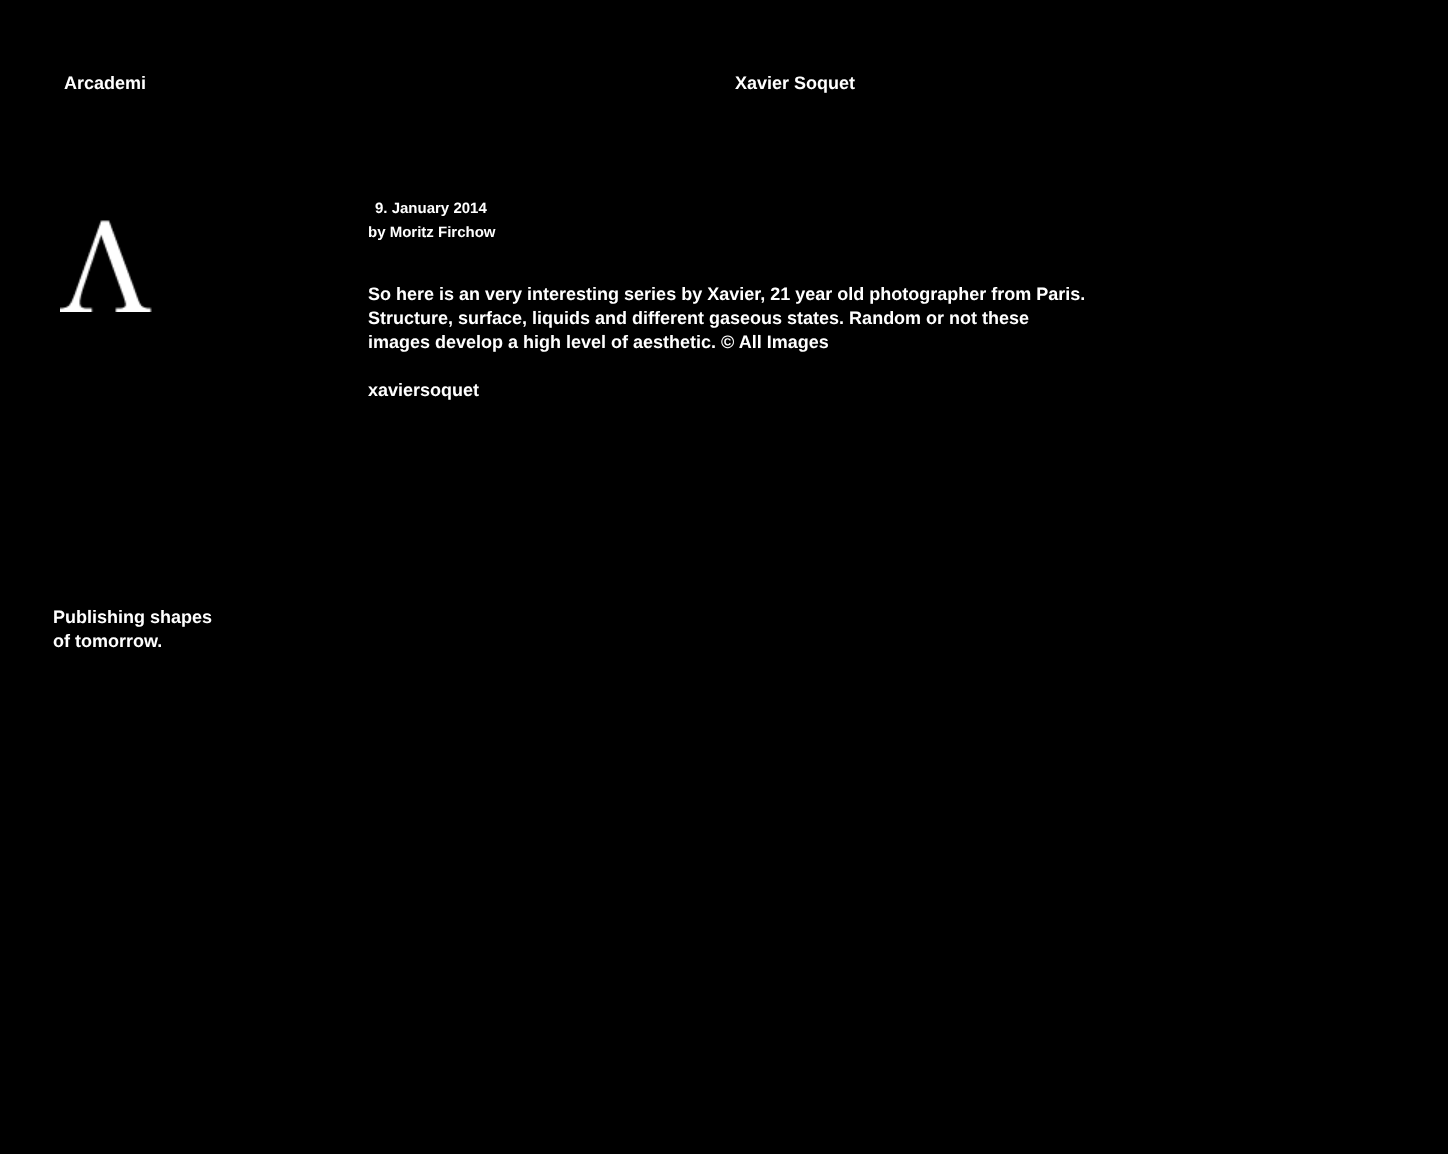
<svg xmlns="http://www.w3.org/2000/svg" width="1448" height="1154">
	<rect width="100%" height="100%" fill="#000000" />
	<text x="735" y="89" font-family="Liberation Sans" font-size="18" font-weight="700" fill="#FFFFFF">Xavier Soquet</text>
	<g font-family="Liberation Sans" font-size="15" font-weight="700" fill="#FFFFFF">
		<text x="375" y="213">9. January 2014</text>
		<text x="368" y="237">by Moritz Firchow</text>
	</g>
	<g font-family="Liberation Sans" font-size="18" font-weight="700" fill="#FFFFFF">
		<text x="368" y="300">So here is an very interesting series by Xavier, 21 year old photographer from Paris.</text>
		<text x="368" y="324">Structure, surface, liquids and different gaseous states. Random or not these</text>
		<text x="368" y="348">images develop a high level of aesthetic. © All Images</text>
		<text x="368" y="396">xaviersoquet</text>
		<text x="53" y="623">Publishing shapes</text>
		<text x="53" y="647">of tomorrow.</text>
		<text x="64" y="89">Arcademi</text>
	</g>
	<image x="60" y="220" width="92" height="92" href="assets/img1.png" />
</svg>
